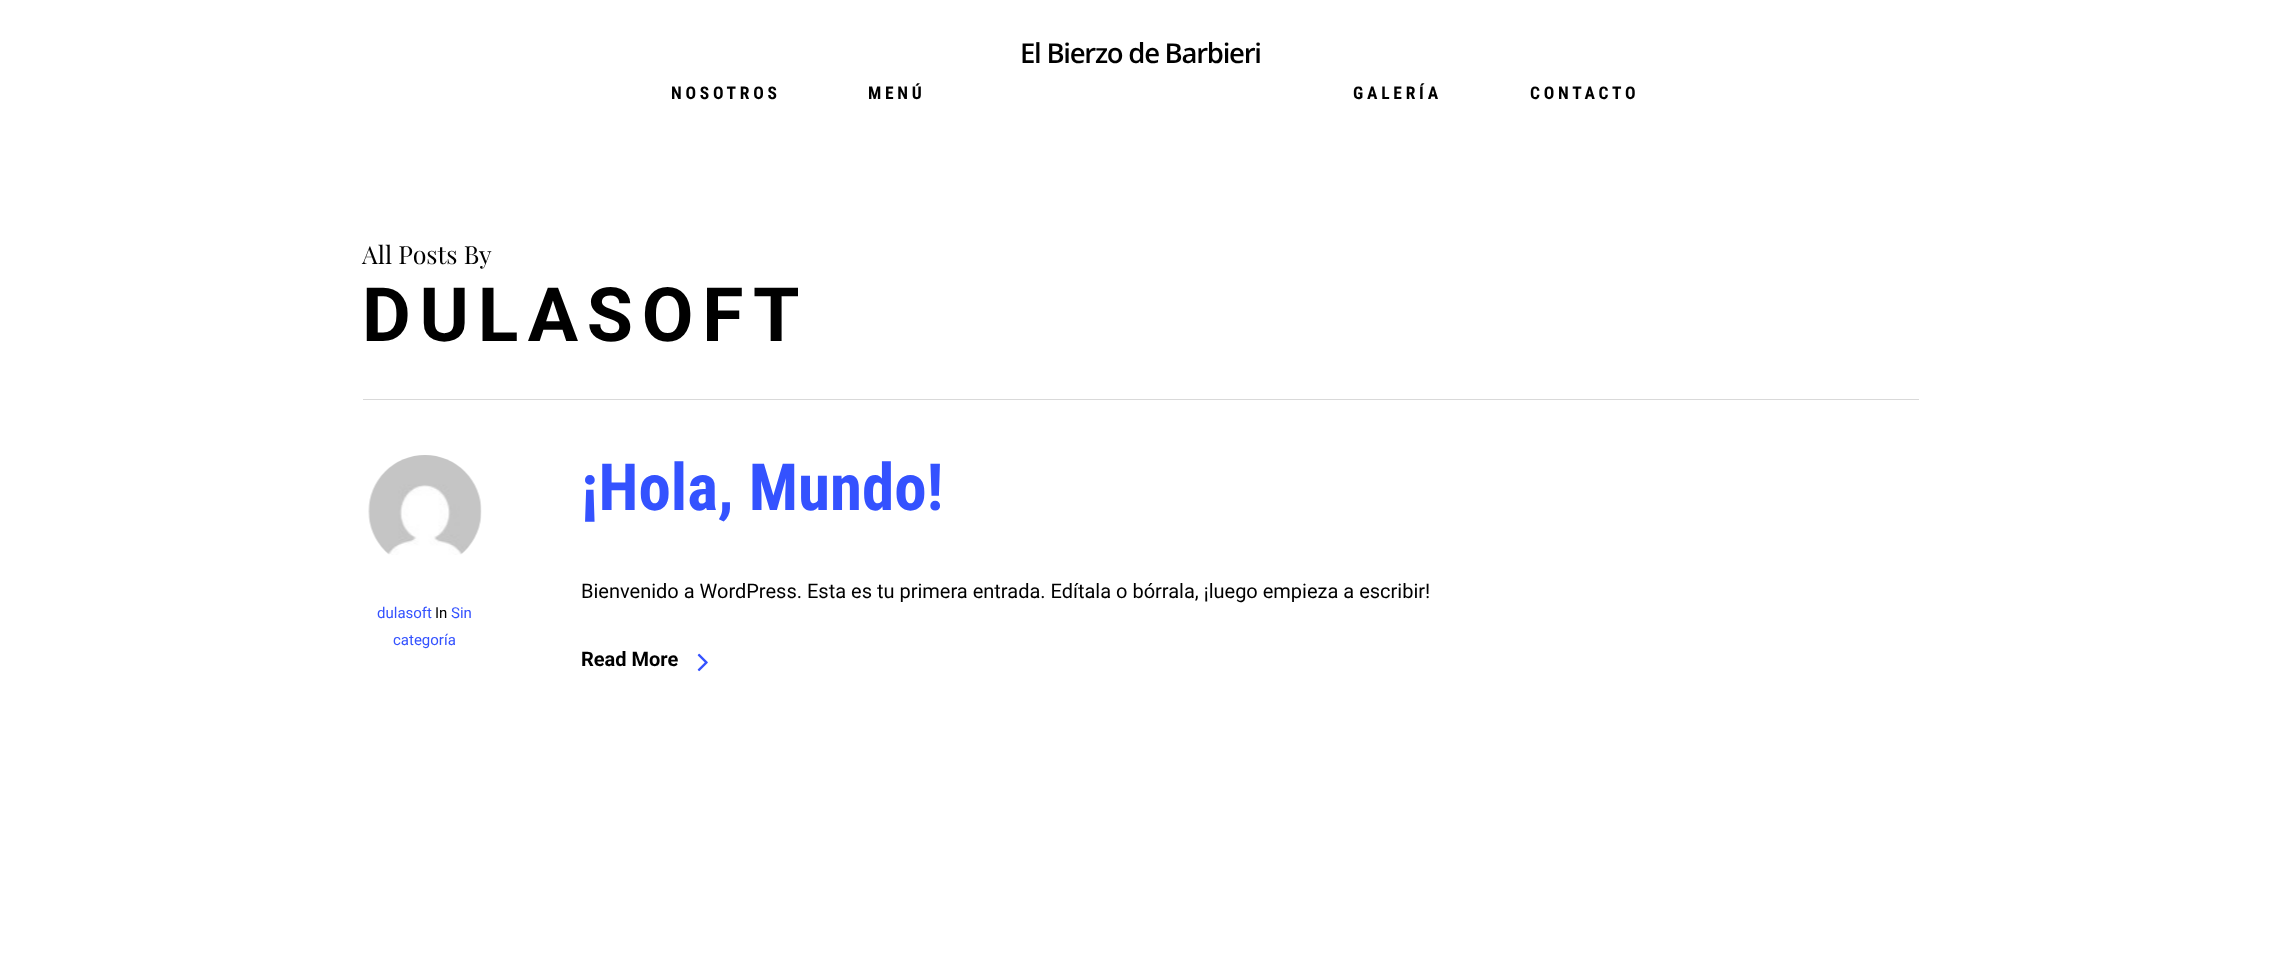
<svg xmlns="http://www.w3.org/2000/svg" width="2280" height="980">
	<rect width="100%" height="100%" fill="#FFFFFF" />
	<text x="1020" y="63" font-family="Open Sans" font-size="27.5" font-weight="600" letter-spacing="-1.25" fill="#000000">El Bierzo de Barbieri</text>
	<g font-family="Roboto Condensed" font-size="17.5" font-weight="700" letter-spacing="3.75" fill="#000000">
		<text x="671" y="99">NOSOTROS</text>
		<text x="868" y="99">MENÚ</text>
		<text x="1353" y="99">GALERÍA</text>
		<text x="1530" y="99">CONTACTO</text>
	</g>
	<rect x="363" y="399" width="1556" height="1" fill="#D9D9D9" />
	<text x="362" y="264" font-family="Playfair Display" font-size="25" fill="#000000">All Posts By</text>
	<text x="362" y="341" font-family="Roboto" font-size="75" font-weight="700" letter-spacing="8.75" fill="#000000">DULASOFT</text>
	<image x="368" y="455" width="114" height="100" href="assets/img1.png" />
	<text x="377" y="618" font-family="Roboto" font-size="15" fill="#3452FF">dulasoft</text>
	<text x="435" y="618" font-family="Roboto" font-size="15" fill="#000000">In</text>
	<g font-family="Roboto" font-size="15" fill="#3452FF">
		<text x="451" y="618">Sin</text>
		<text x="393" y="645">categoría</text>
	</g>
	<text x="581" y="510" font-family="Roboto Condensed" font-size="65" font-weight="700" fill="#3452FF">¡Hola, Mundo!</text>
	<text x="581" y="598" font-family="Roboto" font-size="20" fill="#000000">Bienvenido a WordPress. Esta es tu primera entrada. Edítala o bórrala, ¡luego empieza a escribir!</text>
	<text x="581" y="666" font-family="Roboto" font-size="20" font-weight="700" fill="#000000">Read More</text>
	<image x="697" y="653" width="11" height="19" href="assets/img2.png" />
</svg>
